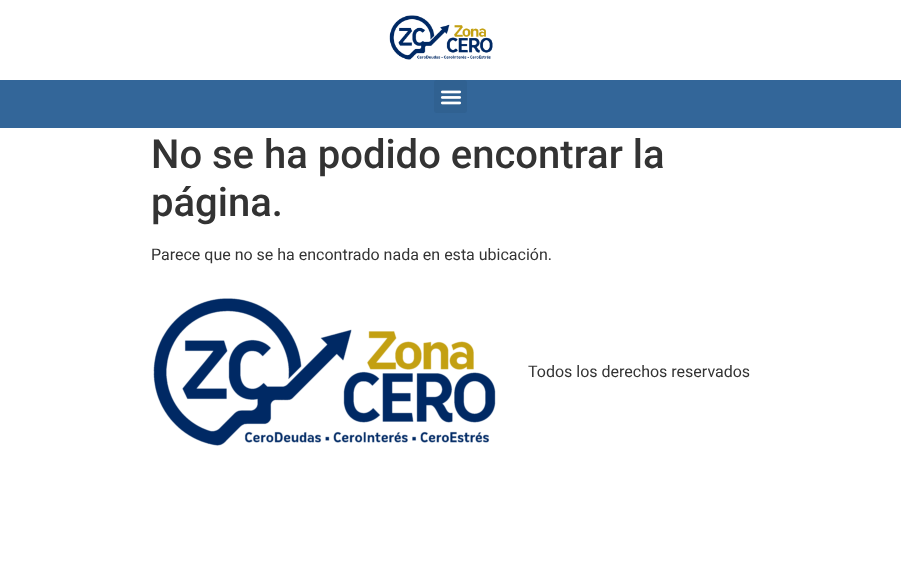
<svg xmlns="http://www.w3.org/2000/svg" width="901" height="574">
	<rect width="100%" height="100%" fill="#FFFFFF" />
	<image x="389" y="15" width="104" height="45" href="assets/img1.png" />
	<rect x="0" y="80" width="901" height="48" fill="#336699" />
	<rect x="434" y="80" width="33" height="33" rx="3" fill="#306191" />
	<image x="440" y="90" width="22" height="15" href="assets/img2.png" />
	<g font-family="Roboto" font-size="40" font-weight="500" fill="#333333">
		<text x="151" y="168">No se ha podido encontrar la</text>
		<text x="151" y="216">página.</text>
	</g>
	<text x="151" y="260" font-family="Roboto" font-size="16" fill="#333333">Parece que no se ha encontrado nada en esta ubicación.</text>
	<image x="153" y="298" width="343" height="148" href="assets/img3.png" />
	<text x="528" y="377" font-family="Roboto" font-size="16" fill="#333333">Todos los derechos reservados</text>
</svg>
